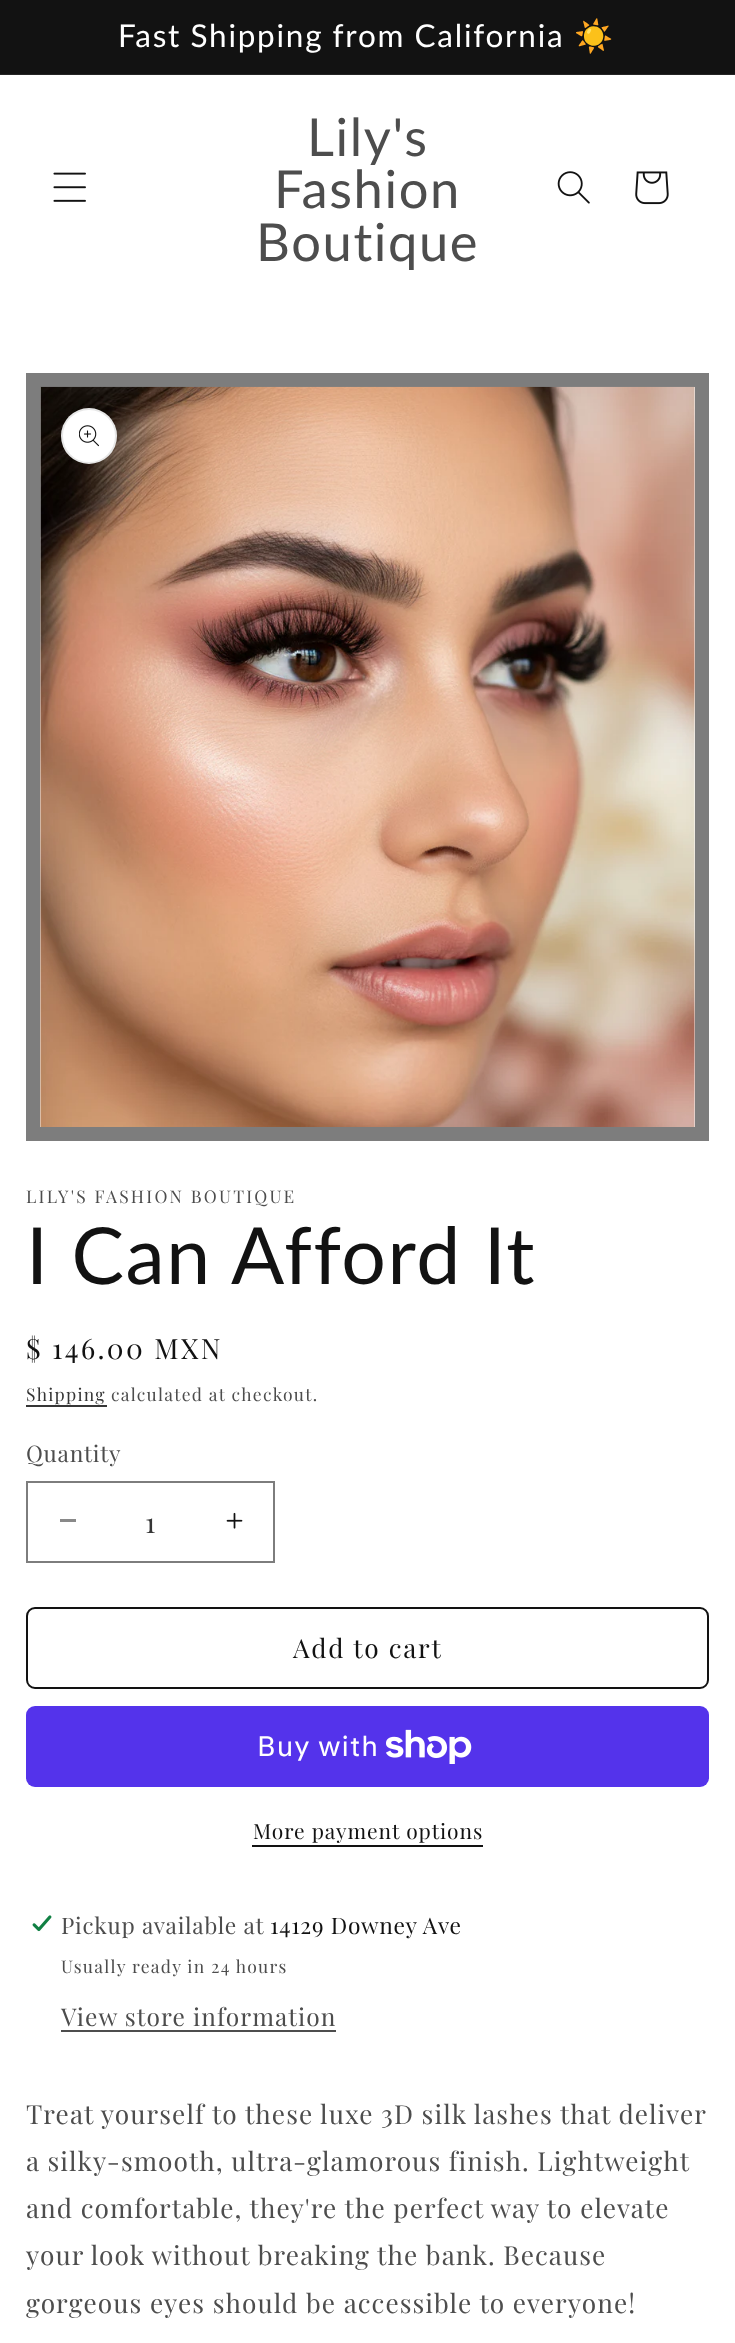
<svg xmlns="http://www.w3.org/2000/svg" width="735" height="2343">
	<rect width="100%" height="100%" fill="#FFFFFF" />
	<rect x="0" y="0" width="735" height="74" fill="#121212" />
	<rect x="0" y="74" width="735" height="1" fill="#252525" />
	<text x="118" y="47" word-spacing="-0.5" font-family="Lato" font-size="31.5" letter-spacing="1.75" fill="#FFFFFF">Fast Shipping from California</text>
	<text x="574" y="47" font-family="Noto Color Emoji" font-size="31.5" letter-spacing="1.75" fill="#FFFFFF">☀️</text>
	<image x="53" y="172" width="33" height="30" href="assets/img1.png" />
	<g font-family="Lato" font-size="52.5" letter-spacing="1.6" fill="#4D4D4D">
		<text x="307" y="156">Lily's</text>
		<text x="274" y="208">Fashion</text>
		<text x="256" y="261">Boutique</text>
	</g>
	<image x="557" y="171" width="33" height="33" href="assets/img2.png" />
	<image x="635" y="171" width="34" height="34" href="assets/img3.png" />
	<rect x="33" y="380" width="669" height="754" fill="none" stroke="#7D7D7D" stroke-width="14" />
	<image x="40" y="386" width="655" height="741" href="assets/img4.png" />
	<circle cx="89" cy="436" r="28" fill="#FFFFFF" />
	<circle cx="89" cy="436" r="27" fill="none" stroke="#121212" stroke-opacity="0.1" stroke-width="2" />
	<image x="79" y="425" width="20" height="22" href="assets/img5.png" />
	<text x="26" y="1203" font-family="Playfair Display" font-size="17.5" letter-spacing="2.25" fill="#4D4D4D">LILY'S FASHION BOUTIQUE</text>
	<text x="26" y="1284" font-family="Lato" font-size="78.75" letter-spacing="1.6" fill="#121212">I Can Afford It</text>
	<text x="26" y="1359" font-family="Playfair Display" font-size="28" letter-spacing="2.25" fill="#121212">$ 146.00 MXN</text>
	<text x="26" y="1401" font-family="Playfair Display" font-size="17.5" letter-spacing="1.25" fill="#363636">Shipping</text>
	<rect x="26" y="1405" width="81" height="2" fill="#363636" />
	<text x="111" y="1401" font-family="Playfair Display" font-size="17.5" letter-spacing="1.25" fill="#4D4D4D">calculated at checkout.</text>
	<text x="26" y="1462" font-family="Playfair Display" font-size="22.75" letter-spacing="0.75" fill="#4D4D4D">Quantity</text>
	<rect x="60" y="1519" width="16" height="3" fill="#898989" />
	<image x="226" y="1512" width="17" height="17" href="assets/img6.png" />
	<rect x="27" y="1482" width="247" height="80" fill="none" stroke="#7D7D7D" stroke-width="2" />
	<text x="145" y="1533" font-family="Playfair Display" font-size="28" fill="#363636">1</text>
	<rect x="27" y="1608" width="681" height="80" rx="8" fill="none" stroke="#121212" stroke-width="2" />
	<text x="293" y="1658" font-family="Playfair Display" font-size="26.25" letter-spacing="1.75" fill="#121212">Add to cart</text>
	<rect x="26" y="1706" width="683" height="81" rx="9" fill="#5433EB" />
	<text x="257" y="1756" font-family="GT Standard" font-size="28" letter-spacing="1.05" fill="#FFFFFF">Buy with</text>
	<image x="386" y="1729" width="86" height="35" href="assets/img7.png" />
	<text x="253" y="1839" font-family="Playfair Display" font-size="21" letter-spacing="0.9" fill="#121212">More payment options</text>
	<rect x="252" y="1845" width="231" height="2" fill="#121212" />
	<image x="32" y="1915" width="20" height="17" href="assets/img8.png" />
	<text x="61" y="1934" font-family="Playfair Display" font-size="22.75" letter-spacing="0.75" fill="#4D4D4D">Pickup available at</text>
	<text x="270" y="1934" font-family="Playfair Display" font-size="22.75" letter-spacing="0.75" fill="#121212">14129 Downey Ave</text>
	<text x="61" y="1973" font-family="Playfair Display" font-size="17.5" letter-spacing="1.25" fill="#4D4D4D">Usually ready in 24 hours</text>
	<text x="61" y="2026" font-family="Playfair Display" font-size="24.5" letter-spacing="1.05" fill="#4D4D4D">View store information</text>
	<rect x="61" y="2030" width="275" height="2" fill="#4D4D4D" />
	<g font-family="Playfair Display" font-size="26.25" letter-spacing="1.05" fill="#4D4D4D">
		<text x="26" y="2124">Treat yourself to these luxe 3D silk lashes that deliver</text>
		<text x="26" y="2171">a silky-smooth, ultra-glamorous finish. Lightweight</text>
		<text x="26" y="2218">and comfortable, they're the perfect way to elevate</text>
		<text x="26" y="2265">your look without breaking the bank. Because</text>
		<text x="26" y="2313">gorgeous eyes should be accessible to everyone!</text>
	</g>
</svg>
